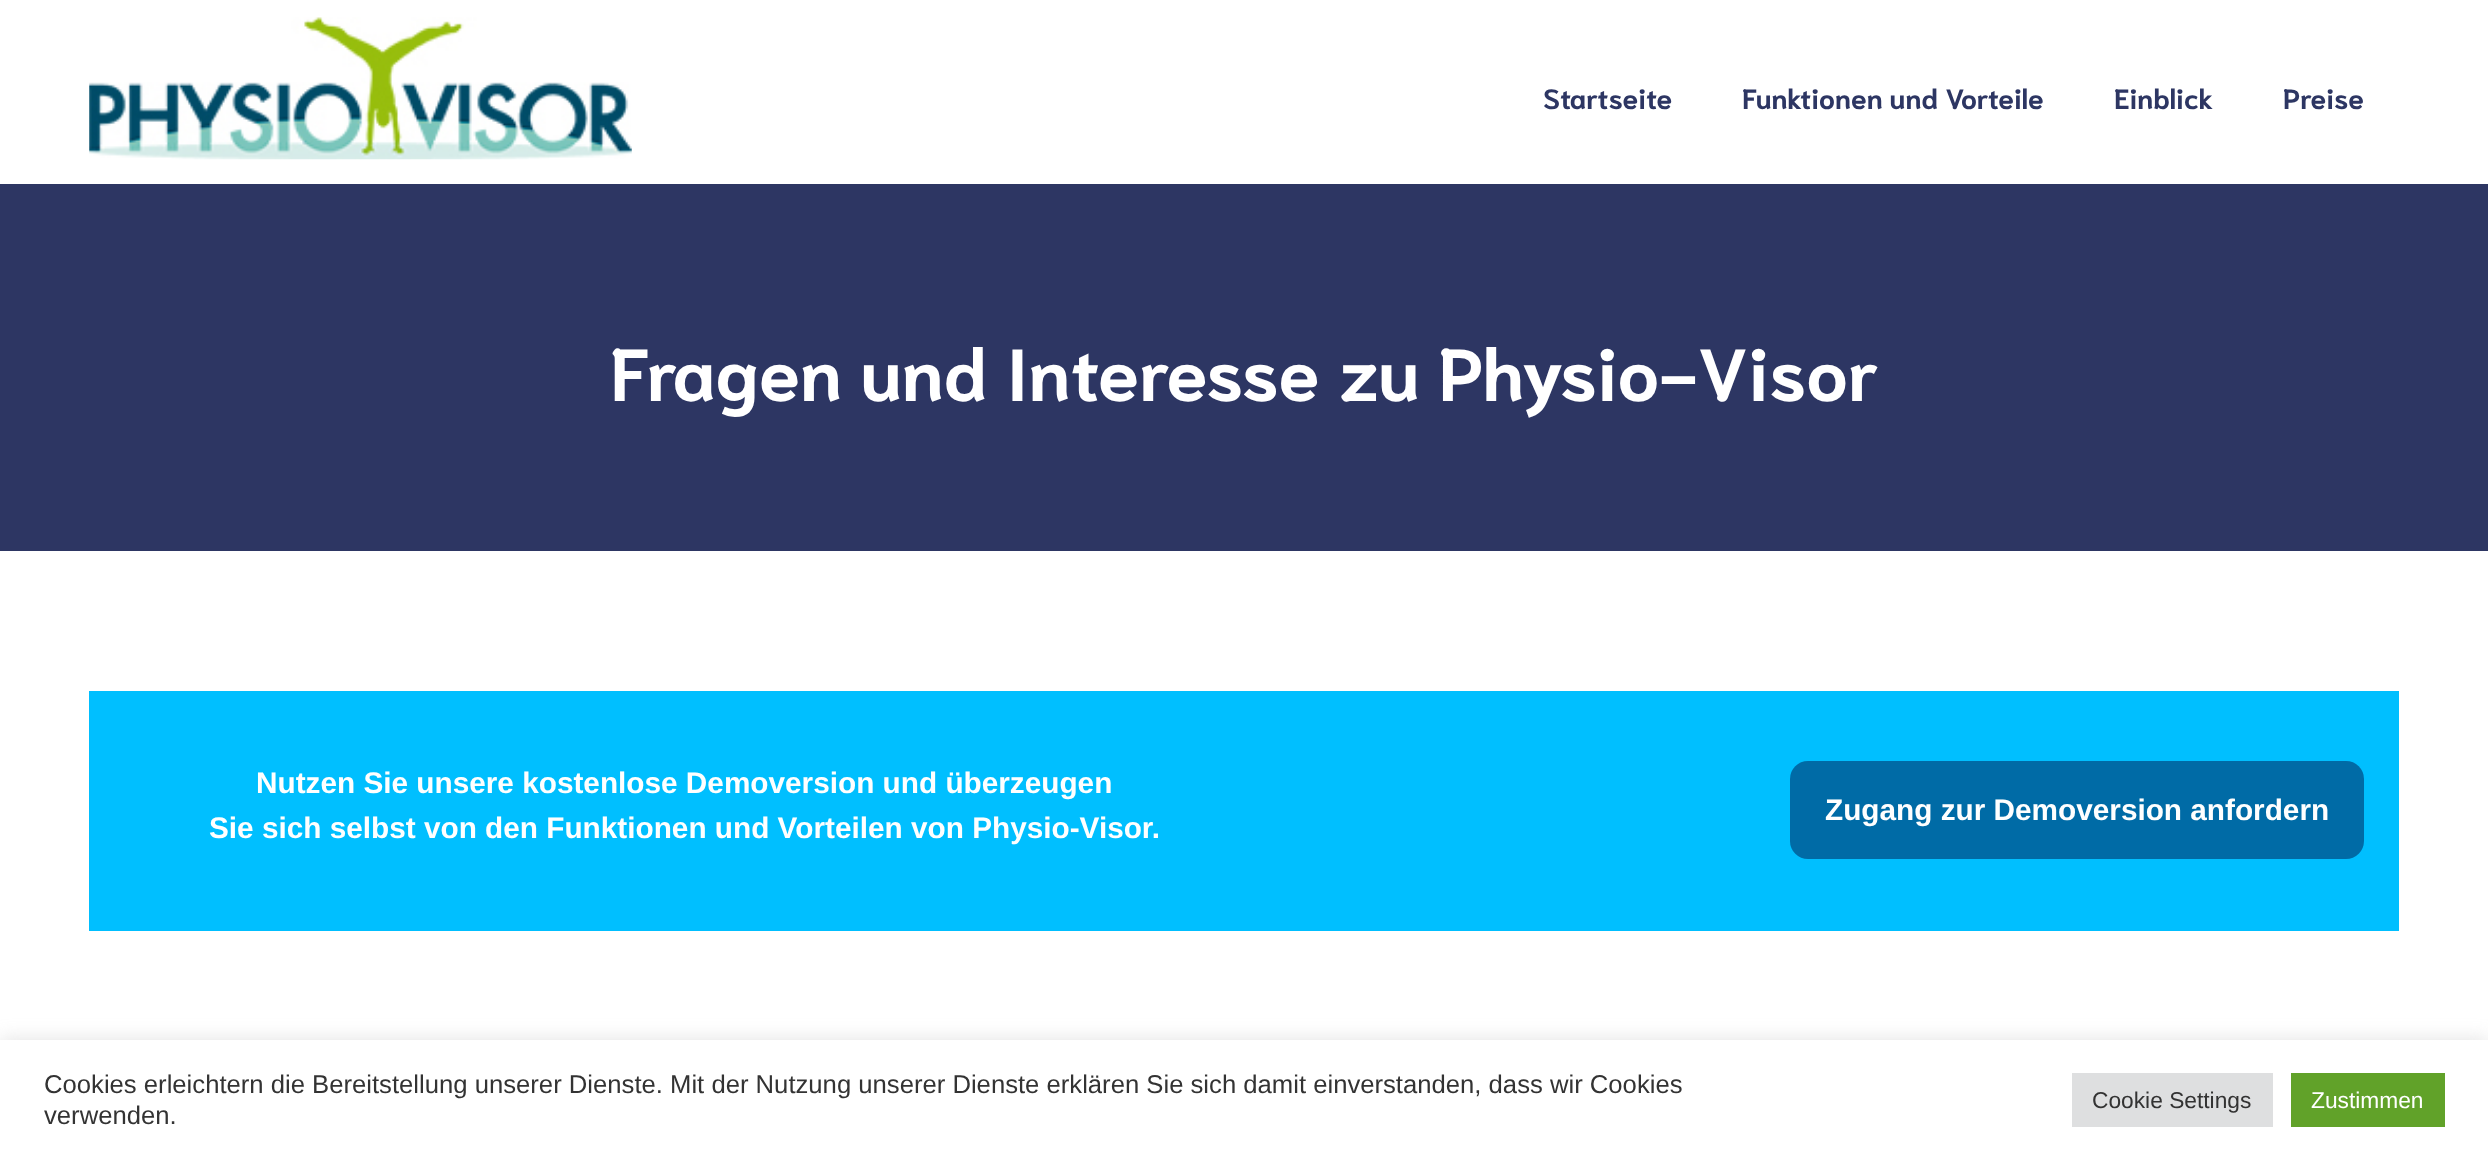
<svg xmlns="http://www.w3.org/2000/svg" width="2488" height="1159">
	<rect width="100%" height="100%" fill="#FFFFFF" />
	<image x="89" y="17" width="543" height="143" href="assets/img1.png" />
	<g font-family="Niramit" font-size="28" font-weight="700" fill="#2D3663">
		<text x="1543" y="109">Startseite</text>
		<text x="1742" y="109">Funktionen und Vorteile</text>
		<text x="2114" y="109">Einblick</text>
		<text x="2283" y="109">Preise</text>
	</g>
	<rect x="0" y="184" width="2488" height="367" fill="#2D3663" />
	<text x="610" y="401" font-family="Niramit" font-size="73.5" font-weight="700" fill="#FFFFFF">Fragen und Interesse zu Physio-Visor</text>
	<rect x="89" y="691" width="2310" height="240" fill="#00BFFF" />
	<g font-family="Liberation Sans" font-size="29.75" font-weight="700" fill="#FFFFFF">
		<text x="256" y="793">Nutzen Sie unsere kostenlose Demoversion und überzeugen</text>
		<text x="209" y="838">Sie sich selbst von den Funktionen und Vorteilen von Physio-Visor.</text>
	</g>
	<rect x="1790" y="761" width="574" height="98" rx="18" fill="#006BA6" />
	<text x="1825" y="820" font-family="Liberation Sans" font-size="29.75" font-weight="700" fill="#FFFFFF">Zugang zur Demoversion anfordern</text>
	<rect x="0" y="1038" width="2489" height="121" fill="#ACABAB" fill-opacity="0.3" filter="blur(9px)" />
	<rect x="0" y="1040" width="2488" height="119" fill="#FFFFFF" />
	<g font-family="Liberation Sans" font-size="25.67" fill="#333333">
		<text x="44" y="1093">Cookies erleichtern die Bereitstellung unserer Dienste. Mit der Nutzung unserer Dienste erklären Sie sich damit einverstanden, dass wir Cookies</text>
		<text x="44" y="1124">verwenden.</text>
	</g>
	<rect x="2072" y="1073" width="201" height="54" fill="#DEDFE0" />
	<text x="2092" y="1108" font-family="Liberation Sans" font-size="22.75" fill="#333333">Cookie Settings</text>
	<rect x="2291" y="1073" width="154" height="54" fill="#61A229" />
	<text x="2311" y="1108" font-family="Liberation Sans" font-size="22.75" fill="#FFFFFF">Zustimmen</text>
</svg>
